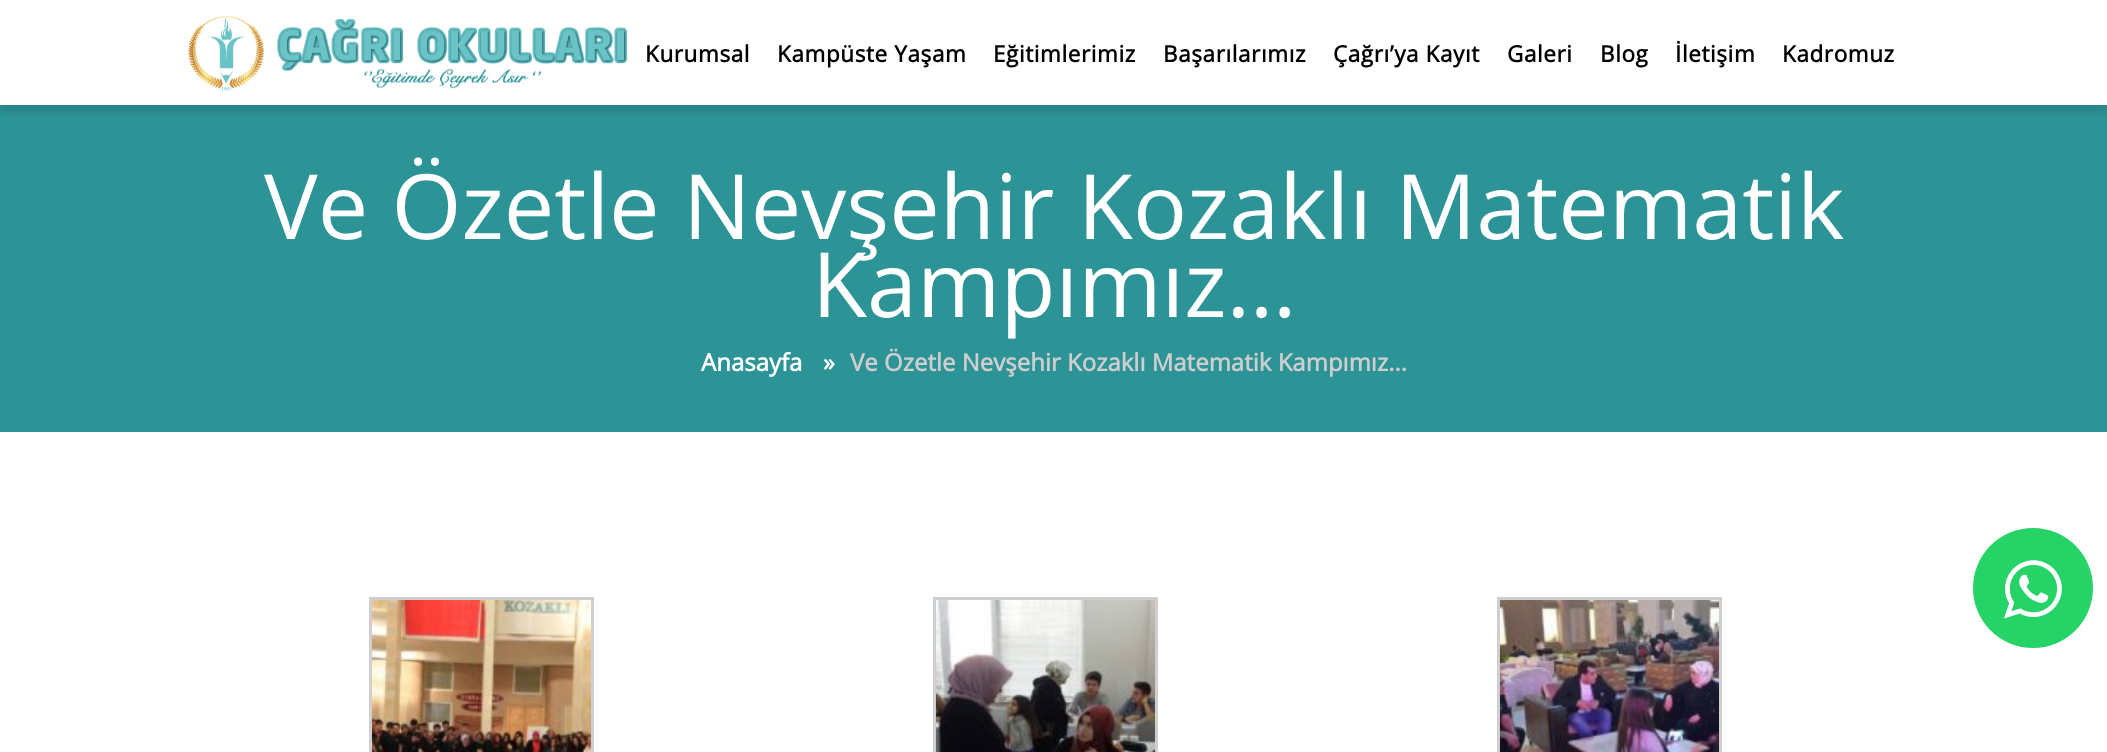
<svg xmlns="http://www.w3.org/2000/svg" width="2107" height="752">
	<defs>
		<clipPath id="clip1"><rect x="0" y="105" width="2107" height="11" /></clipPath>
	</defs>
	<rect width="100%" height="100%" fill="#FFFFFF" />
	<rect x="0" y="105" width="2107" height="327" fill="#2C9396" />
	<g clip-path="url(#clip1)">
		<rect x="0" y="8" width="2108" height="105" fill="#000000" fill-opacity="0.1" filter="blur(4px)" />
	</g>
	<image x="188" y="16" width="440" height="75" href="assets/img1.png" />
	<g font-family="Open Sans" font-size="22.5" font-weight="700" letter-spacing="0.6" fill="#000000">
		<text x="645" y="62">Kurumsal</text>
		<text x="777" y="62">Kampüste Yaşam</text>
		<text x="993" y="62">Eğitimlerimiz</text>
		<text x="1163" y="62">Başarılarımız</text>
		<text x="1333" y="62">Çağrı’ya Kayıt</text>
		<text x="1507" y="62">Galeri</text>
		<text x="1600" y="62">Blog</text>
		<text x="1675" y="62">İletişim</text>
		<text x="1782" y="62">Kadromuz</text>
	</g>
	<g font-family="Open Sans" font-size="90" fill="#FFFFFF">
		<text x="264" y="239">Ve Özetle Nevşehir Kozaklı Matematik</text>
		<text x="812" y="317">Kampımız…</text>
	</g>
	<g font-family="Open Sans" font-size="24" font-weight="700" fill="#FFFFFF">
		<text x="701" y="371">Anasayfa</text>
		<text x="823" y="371">»</text>
	</g>
	<text x="850" y="371" font-family="Open Sans" font-size="24" font-weight="700" fill="#CECECE">Ve Özetle Nevşehir Kozaklı Matematik Kampımız…</text>
	<rect x="370.5" y="598.5" width="222" height="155" fill="none" stroke="#CFCFCF" stroke-width="3" />
	<image x="372" y="600" width="219" height="152" href="assets/img2.png" />
	<rect x="934.5" y="598.5" width="222" height="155" fill="none" stroke="#CFCFCF" stroke-width="3" />
	<image x="936" y="600" width="219" height="152" href="assets/img3.png" />
	<rect x="1498.5" y="598.5" width="222" height="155" fill="none" stroke="#CFCFCF" stroke-width="3" />
	<image x="1500" y="600" width="219" height="152" href="assets/img4.png" />
	<circle cx="2033" cy="588" r="60" fill="#25D366" />
	<image x="2004" y="560" width="58" height="59" href="assets/img5.png" />
</svg>
